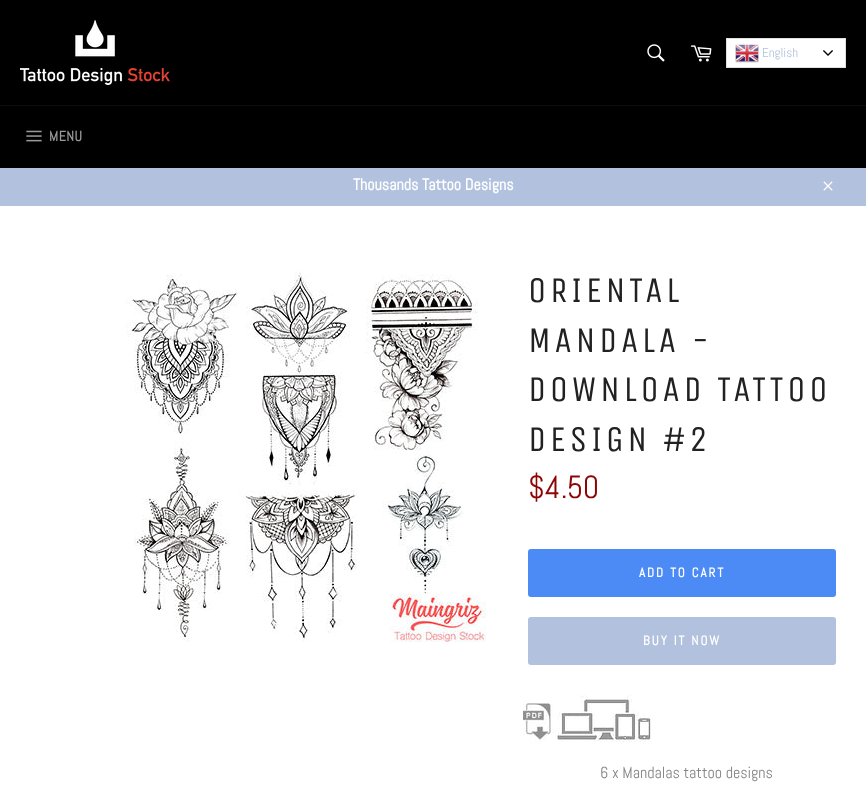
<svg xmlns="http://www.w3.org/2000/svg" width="866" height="788">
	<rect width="100%" height="100%" fill="#FFFFFF" />
	<rect x="0" y="0" width="866" height="105" fill="#000000" />
	<image x="20" y="20" width="150" height="65" href="assets/img1.png" />
	<image x="647" y="44" width="18" height="18" href="assets/img2.png" />
	<image x="690" y="45" width="22" height="17" href="assets/img3.png" />
	<rect x="726.5" y="38.5" width="119" height="29" fill="#FFFFFF" stroke="#E0E0E0" />
	<image x="735" y="44" width="24" height="19" href="assets/img4.png" />
	<text x="762" y="57" font-family="Abel" font-size="13" fill="#B2C2DE">English</text>
	<image x="823" y="50" width="10" height="6" href="assets/img5.png" />
	<rect x="0" y="106" width="866" height="62" fill="#000000" />
	<rect x="0" y="105" width="866" height="1" fill="#0D0D0D" />
	<image x="26" y="130" width="16" height="12" href="assets/img6.png" />
	<text x="49" y="141" font-family="Abel" font-size="14" font-weight="700" letter-spacing="0.5" fill="#999999">MENU</text>
	<rect x="0" y="168" width="866" height="38" fill="#B2C2DE" />
	<text x="353" y="190" font-family="Abel" font-size="16" font-weight="700" fill="#FFFFFF">Thousands Tattoo Designs</text>
	<image x="823" y="181" width="10" height="10" href="assets/img7.png" />
	<image x="126" y="269" width="360" height="373" href="assets/img8.png" />
	<g font-family="Unica One" font-size="36" letter-spacing="3.6" fill="#212121">
		<text x="528" y="302">ORIENTAL</text>
		<text x="528" y="352">MANDALA -</text>
		<text x="528" y="401">DOWNLOAD TATTOO</text>
		<text x="528" y="451">DESIGN #2</text>
	</g>
	<text x="528" y="498" font-family="Abel" font-size="32" fill="#8C0403">$4.50</text>
	<rect x="528" y="549" width="308" height="48" rx="3" fill="#4C8BF5" />
	<text x="639" y="577" font-family="Abel" font-size="13" font-weight="700" letter-spacing="2" fill="#FFFFFF">ADD TO CART</text>
	<rect x="528" y="617" width="308" height="48" rx="3" fill="#B2C2DE" />
	<text x="643" y="645" font-family="Abel" font-size="13" font-weight="700" letter-spacing="2" fill="#FFFFFF">BUY IT NOW</text>
	<image x="523" y="695" width="128" height="48" href="assets/img9.png" />
	<text x="600" y="778" font-family="Abel" font-size="16" fill="#868383">6 x Mandalas tattoo designs</text>
</svg>
